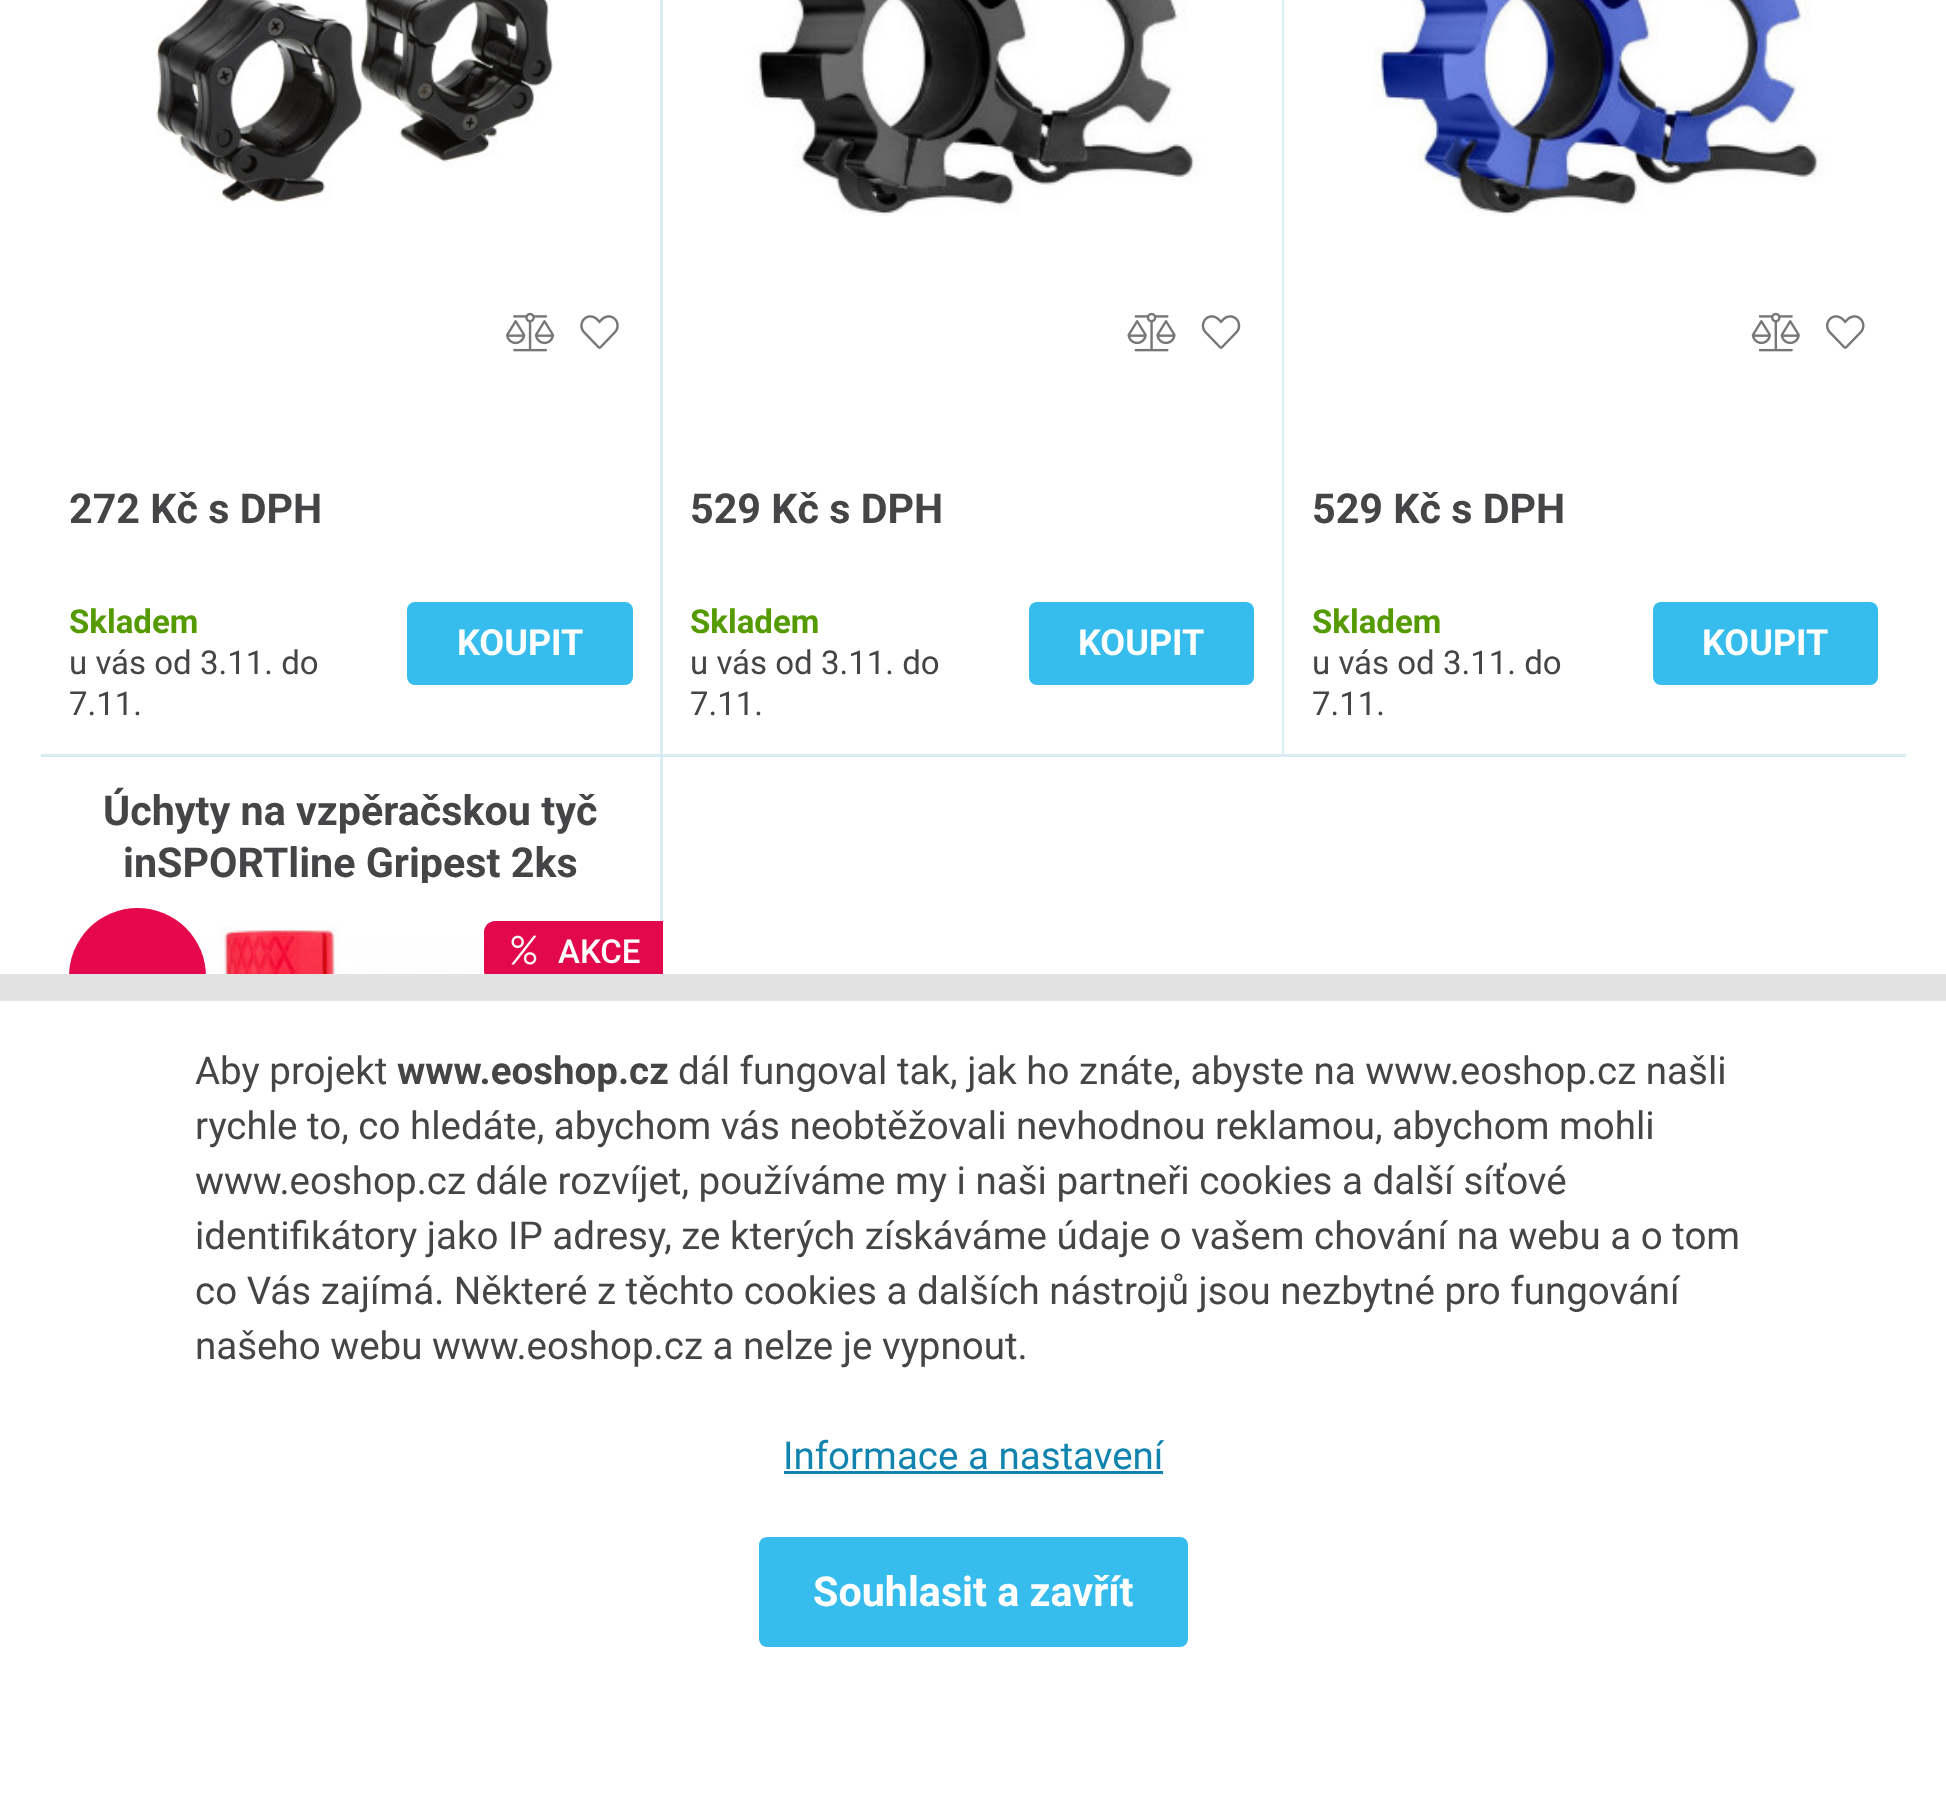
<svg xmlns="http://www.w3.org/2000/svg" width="1946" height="1798">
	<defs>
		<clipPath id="clip1"><rect x="69" y="784" width="564" height="99" /></clipPath>
	</defs>
	<rect width="100%" height="100%" fill="#FFFFFF" />
	<rect x="41" y="754" width="1865" height="3" fill="#D9EBF3" />
	<rect x="660" y="0" width="3" height="754" fill="#D9EBF3" />
	<image x="156" y="0" width="397" height="203" href="assets/img1.png" />
	<image x="506" y="312" width="49" height="40" href="assets/img2.png" />
	<image x="580" y="315" width="39" height="34" href="assets/img3.png" />
	<text x="69" y="523" font-family="Roboto" font-size="41.25" font-weight="700" fill="#454547">272 Kč s DPH</text>
	<text x="69" y="633" font-family="Roboto" font-size="33" font-weight="700" fill="#559A01">Skladem</text>
	<g font-family="Roboto" font-size="33" fill="#454547">
		<text x="69" y="674">u vás od 3.11. do</text>
		<text x="69" y="715">7.11.</text>
	</g>
	<rect x="407" y="602" width="226" height="83" rx="8" fill="#37BDED" />
	<text x="457" y="655" font-family="Roboto" font-size="36" font-weight="700" fill="#FFFFFF">KOUPIT</text>
	<rect x="1282" y="0" width="2" height="754" fill="#D9EBF3" />
	<image x="751" y="0" width="450" height="216" href="assets/img4.png" />
	<image x="1127" y="312" width="49" height="40" href="assets/img5.png" />
	<image x="1201" y="315" width="40" height="34" href="assets/img6.png" />
	<text x="690" y="523" font-family="Roboto" font-size="41.25" font-weight="700" fill="#454547">529 Kč s DPH</text>
	<text x="690" y="633" font-family="Roboto" font-size="33" font-weight="700" fill="#559A01">Skladem</text>
	<g font-family="Roboto" font-size="33" fill="#454547">
		<text x="690" y="674">u vás od 3.11. do</text>
		<text x="690" y="715">7.11.</text>
	</g>
	<rect x="1029" y="602" width="225" height="83" rx="8" fill="#37BDED" />
	<text x="1078" y="655" font-family="Roboto" font-size="36" font-weight="700" fill="#FFFFFF">KOUPIT</text>
	<image x="1372" y="0" width="453" height="216" href="assets/img7.png" />
	<image x="1751" y="312" width="49" height="40" href="assets/img8.png" />
	<image x="1826" y="315" width="39" height="34" href="assets/img9.png" />
	<text x="1312" y="523" font-family="Roboto" font-size="41.25" font-weight="700" fill="#454547">529 Kč s DPH</text>
	<text x="1312" y="633" font-family="Roboto" font-size="33" font-weight="700" fill="#559A01">Skladem</text>
	<g font-family="Roboto" font-size="33" fill="#454547">
		<text x="1312" y="674">u vás od 3.11. do</text>
		<text x="1312" y="715">7.11.</text>
	</g>
	<rect x="1653" y="602" width="225" height="83" rx="8" fill="#37BDED" />
	<text x="1702" y="655" font-family="Roboto" font-size="36" font-weight="700" fill="#FFFFFF">KOUPIT</text>
	<rect x="660" y="756" width="3" height="165" fill="#D9EBF3" />
	<text x="103" y="825" font-family="Roboto" font-size="41.25" font-weight="700" fill="#454547">Úchyty na vzpěračskou tyč</text>
	<g clip-path="url(#clip1)">
		<text x="123" y="877" font-family="Roboto" font-size="41.25" font-weight="700" fill="#454547">inSPORTline Gripest 2ks</text>
	</g>
	<image x="69" y="927" width="417" height="47" href="assets/img10.png" />
	<circle cx="137.5" cy="976.5" r="68.5" fill="#E5084D" />
	<path d="M495 921H663V982H495C489 982 484 977 484 971V932C484 926 489 921 495 921Z" fill="#E3084C" />
	<image x="511" y="935" width="26" height="30" href="assets/img11.png" />
	<text x="558" y="963" font-family="Roboto" font-size="33" font-weight="500" fill="#FFFFFF">AKCE</text>
	<rect x="73" y="1001" width="129" height="44" fill="#FFFFFF" />
	<rect x="0" y="974" width="1946" height="27" fill="#E2E2E2" />
	<text x="195" y="1084" font-family="Roboto" font-size="38.5" fill="#454547">Aby projekt</text>
	<text x="397" y="1084" font-family="Roboto" font-size="38.5" font-weight="700" fill="#454547">www.eoshop.cz</text>
	<g font-family="Roboto" font-size="38.5" fill="#454547">
		<text x="678" y="1084">dál fungoval tak, jak ho znáte, abyste na www.eoshop.cz našli</text>
		<text x="195" y="1139">rychle to, co hledáte, abychom vás neobtěžovali nevhodnou reklamou, abychom mohli</text>
		<text x="195" y="1194">www.eoshop.cz dále rozvíjet, používáme my i naši partneři cookies a další síťové</text>
		<text x="195" y="1249">identifikátory jako IP adresy, ze kterých získáváme údaje o vašem chování na webu a o tom</text>
		<text x="195" y="1304">co Vás zajímá. Některé z těchto cookies a dalších nástrojů jsou nezbytné pro fungování</text>
		<text x="195" y="1359">našeho webu www.eoshop.cz a nelze je vypnout.</text>
	</g>
	<text x="783" y="1469" font-family="Roboto" font-size="38.5" fill="#1084AE">Informace a nastavení</text>
	<rect x="784" y="1471" width="379" height="3" fill="#1084AE" />
	<rect x="759" y="1537" width="429" height="110" rx="8" fill="#37BDED" />
	<text x="813" y="1606" font-family="Roboto" font-size="41.25" font-weight="700" fill="#FFFFFF">Souhlasit a zavřít</text>
</svg>
